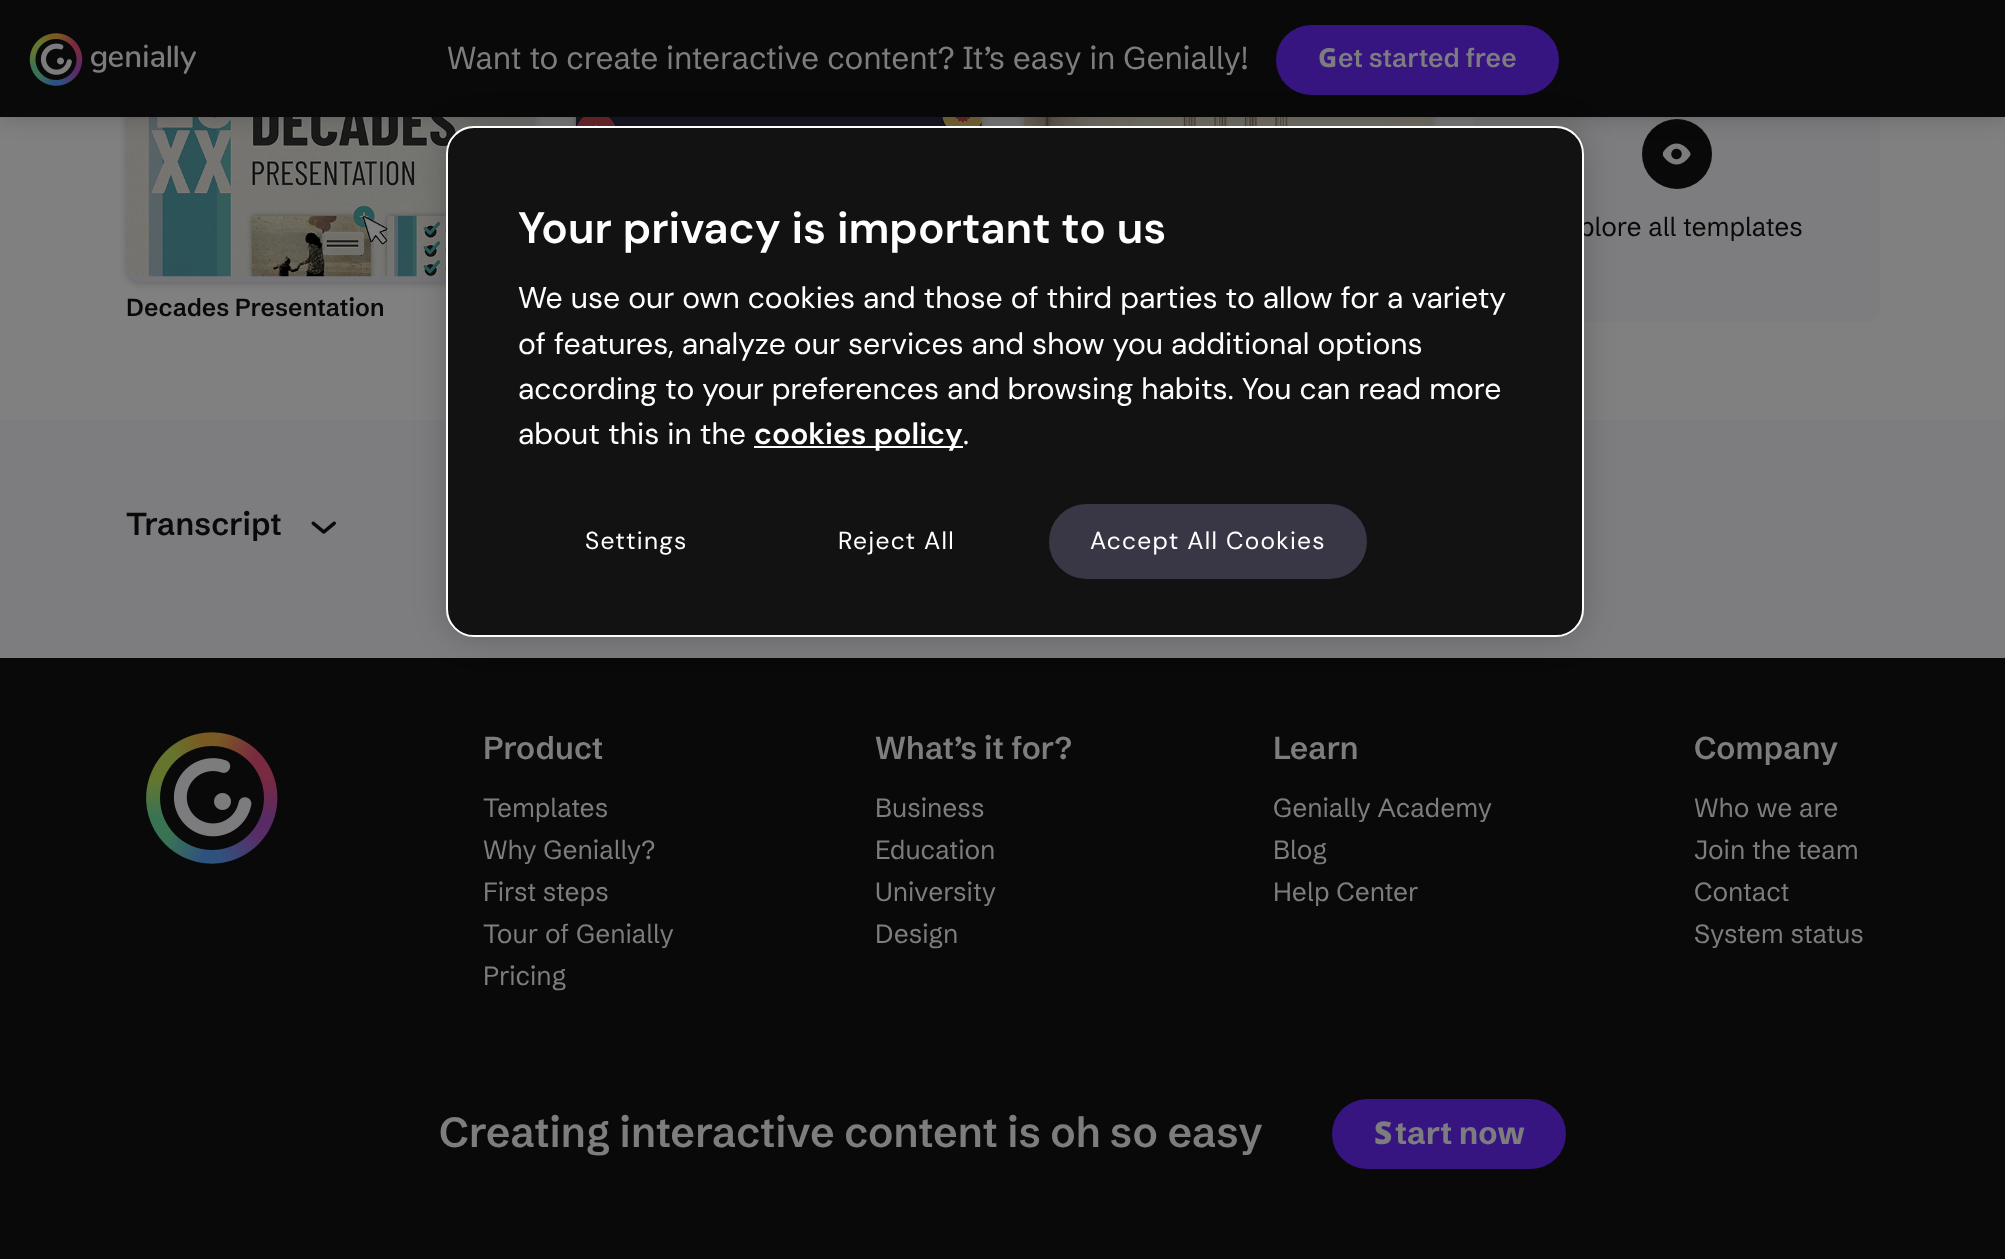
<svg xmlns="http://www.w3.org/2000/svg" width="2005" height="1259">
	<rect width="100%" height="100%" fill="#808080" />
	<rect x="576" y="44" width="406" height="240" rx="14" fill="#090909" fill-opacity="0.2" filter="blur(3.5px)" />
	<rect x="981" y="117" width="1" height="9" fill="#747378" />
	<image x="575" y="117" width="407" height="9" href="assets/img2.png" />
	<rect x="1024" y="44" width="408" height="240" rx="14" fill="#090909" fill-opacity="0.2" filter="blur(3.5px)" />
	<rect x="1431" y="117" width="1" height="9" fill="#747378" />
	<image x="1024" y="117" width="408" height="9" href="assets/img3.png" />
	<rect x="1474" y="42" width="406" height="280" rx="14" fill="#7D7C7E" />
	<circle cx="1677" cy="154" r="35" fill="#090909" />
	<image x="1663" y="143" width="28" height="22" href="assets/img4.png" />
	<rect x="126" y="44" width="408" height="240" rx="14" fill="#090909" fill-opacity="0.2" filter="blur(3.5px)" />
	<rect x="126" y="42" width="408" height="240" rx="14" fill="#747378" />
	<image x="126" y="117" width="408" height="160" href="assets/img5.png" />
	<rect x="0" y="-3" width="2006" height="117" fill="#090909" fill-opacity="0.3" filter="blur(11.5px)" />
	<rect x="0" y="0" width="2005" height="117" fill="#090909" />
	<image x="29" y="33" width="167" height="53" href="assets/img1.png" />
	<text x="447" y="69" font-family="Schibsted Grotesk" font-size="31.5" fill="#7D7C7E">Want to create interactive content? It’s easy in Genially!</text>
	<rect x="1276" y="25" width="283" height="70" rx="35" fill="#361580" />
	<text x="1318" y="67" font-family="Noto Sans" font-size="26.25" font-weight="800" fill="#7D7C7E">G</text>
	<text x="1338" y="67" font-family="Schibsted Grotesk" font-size="26.25" font-weight="600" fill="#7D7C7E">et started free</text>
	<text x="1579" y="236" font-family="Schibsted Grotesk" font-size="26.25" fill="#090909">plore all templates</text>
	<text x="126" y="316" font-family="Schibsted Grotesk" font-size="24.5" font-weight="600" fill="#090909">Decades Presentation</text>
	<rect x="0" y="420" width="2005" height="238" fill="#7D7C7E" />
	<text x="126" y="535" font-family="Schibsted Grotesk" font-size="31.5" font-weight="600" fill="#090909">Transcript</text>
	<image x="311" y="521" width="25" height="13" href="assets/img6.png" />
	<rect x="0" y="658" width="2005" height="601" fill="#090909" />
	<image x="146" y="732" width="132" height="132" href="assets/img7.png" />
	<text x="483" y="759" font-family="Schibsted Grotesk" font-size="31.5" font-weight="600" fill="#7D7C7E">Product</text>
	<g font-family="Schibsted Grotesk" font-size="26.25" fill="#7D7C7E">
		<text x="483" y="817">Templates</text>
		<text x="483" y="859">Why Genially?</text>
		<text x="483" y="901">First steps</text>
		<text x="483" y="943">Tour of Genially</text>
		<text x="483" y="985">Pricing</text>
	</g>
	<text x="875" y="759" font-family="Schibsted Grotesk" font-size="31.5" font-weight="600" fill="#7D7C7E">What’s it for?</text>
	<g font-family="Schibsted Grotesk" font-size="26.25" fill="#7D7C7E">
		<text x="875" y="817">Business</text>
		<text x="875" y="859">Education</text>
		<text x="875" y="901">University</text>
		<text x="875" y="943">Design</text>
	</g>
	<text x="1273" y="759" font-family="Schibsted Grotesk" font-size="31.5" font-weight="600" fill="#7D7C7E">Learn</text>
	<g font-family="Schibsted Grotesk" font-size="26.25" fill="#7D7C7E">
		<text x="1273" y="817">Genially Academy</text>
		<text x="1273" y="859">Blog</text>
		<text x="1273" y="901">Help Center</text>
	</g>
	<text x="1694" y="759" font-family="Schibsted Grotesk" font-size="31.5" font-weight="600" fill="#7D7C7E">Company</text>
	<g font-family="Schibsted Grotesk" font-size="26.25" fill="#7D7C7E">
		<text x="1694" y="817">Who we are</text>
		<text x="1694" y="859">Join the team</text>
		<text x="1694" y="901">Contact</text>
		<text x="1694" y="943">System status</text>
	</g>
	<text x="439" y="1147" font-family="Schibsted Grotesk" font-size="42" font-weight="600" fill="#7D7C7E">Creating interactive content is oh so easy</text>
	<rect x="1332" y="1099" width="234" height="70" rx="35" fill="#361580" />
	<text x="1374" y="1144" font-family="Noto Sans" font-size="31.5" font-weight="900" fill="#7D7C7E">S</text>
	<text x="1395" y="1144" font-family="Schibsted Grotesk" font-size="31.5" font-weight="700" fill="#7D7C7E">tart now</text>
	<rect x="446" y="126" width="1138" height="511" rx="28" fill="#000000" fill-opacity="0.2" filter="blur(16px)" />
	<rect x="447" y="127" width="1136" height="509" rx="27" fill="#121212" stroke="#FFFFFF" stroke-width="2" />
	<text x="518" y="243" font-family="DM Sans" font-size="44.1" font-weight="600" fill="#FFFFFF">Your privacy is important to us</text>
	<g font-family="DM Sans" font-size="30.1" fill="#FFFFFF">
		<text x="518" y="308">We use our own cookies and those of third parties to allow for a variety</text>
		<text x="518" y="354">of features, analyze our services and show you additional options</text>
		<text x="518" y="399">according to your preferences and browsing habits. You can read more</text>
		<text x="518" y="444">about this in the</text>
	</g>
	<rect x="754" y="446" width="209" height="2" fill="#FFFFFF" />
	<text x="754" y="444" font-family="DM Sans" font-size="30.1" font-weight="600" fill="#FFFFFF">cookies policy</text>
	<text x="963" y="444" font-family="DM Sans" font-size="30.1" fill="#FFFFFF">.</text>
	<g font-family="DM Sans" font-size="24.5" letter-spacing="1.25" fill="#FFFFFF">
		<text x="585" y="549">Settings</text>
		<text x="838" y="549">Reject All</text>
	</g>
	<rect x="1048" y="503" width="320" height="77" rx="38.5" fill="#393645" stroke="#121212" stroke-width="2" />
	<text x="1090" y="549" font-family="DM Sans" font-size="24.5" letter-spacing="1.25" fill="#FFFFFF">Accept All Cookies</text>
</svg>
